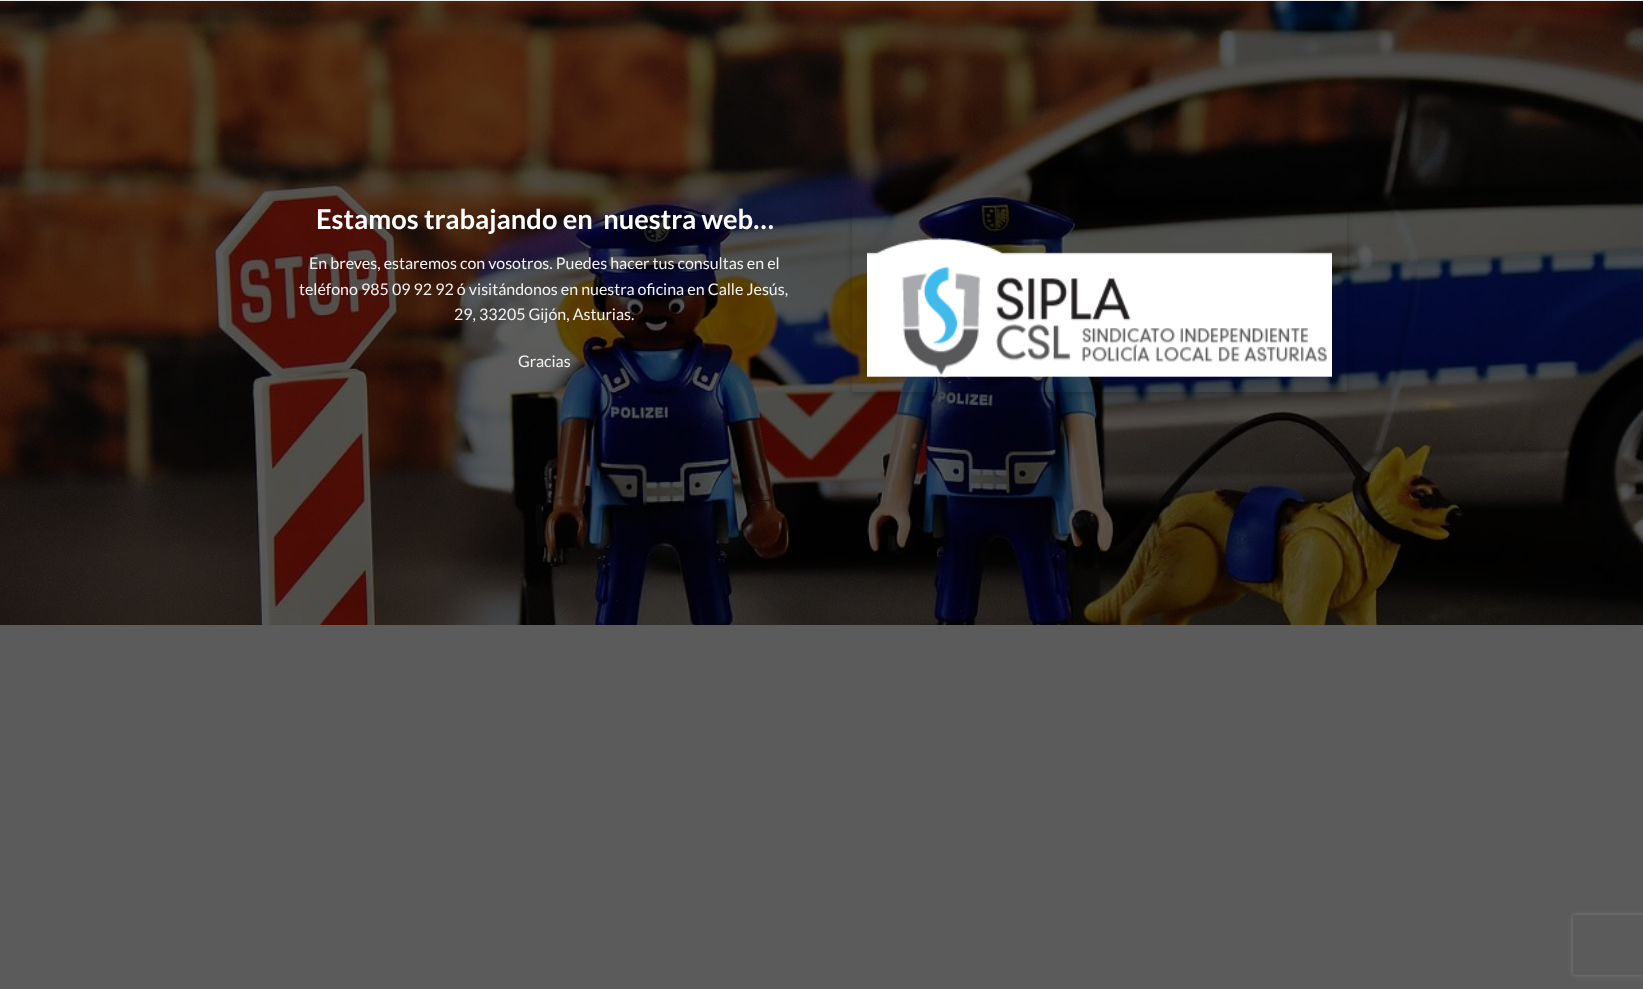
<svg xmlns="http://www.w3.org/2000/svg" width="1643" height="989">
	<defs>
		<clipPath id="clip1"><path d="M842 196H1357V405H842ZM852 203H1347V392H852Z" clip-rule="evenodd" /></clipPath>
		<clipPath id="clip2"><path d="M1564 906H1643V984H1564ZM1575 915H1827C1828 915 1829 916 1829 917V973C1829 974 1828 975 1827 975H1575C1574 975 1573 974 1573 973V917C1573 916 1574 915 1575 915Z" clip-rule="evenodd" /></clipPath>
	</defs>
	<rect width="100%" height="100%" fill="#5B5B5B" />
	<rect x="0" y="0" width="1643" height="1" fill="#EBEBEB" />
	<image x="0" y="1" width="1643" height="624" href="assets/img1.png" />
	<text x="316" y="229" font-family="Lato" font-size="27.25" font-weight="700" fill="#FFFFFF" xml:space="preserve">Estamos trabajando en  nuestra web…</text>
	<g font-family="Lato" font-size="16" fill="#F1F1F1">
		<text x="309" y="269">En breves, estaremos con vosotros. Puedes hacer tus consultas en el</text>
		<text x="299" y="295">teléfono 985 09 92 92 ó visitándonos en nuestra oficina en Calle Jesús,</text>
		<text x="454" y="320">29, 33205 Gijón, Asturias.</text>
		<text x="518" y="367">Gracias</text>
	</g>
	<g clip-path="url(#clip1)">
		<rect x="852" y="206" width="495" height="189" fill="#000000" fill-opacity="0.23" filter="blur(3px)" />
	</g>
	<image x="867" y="238" width="465" height="139" href="assets/img2.png" />
	<g clip-path="url(#clip2)">
		<rect x="1573" y="915" width="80" height="60" rx="2" fill="#808080" filter="blur(2.5px)" />
	</g>
</svg>
